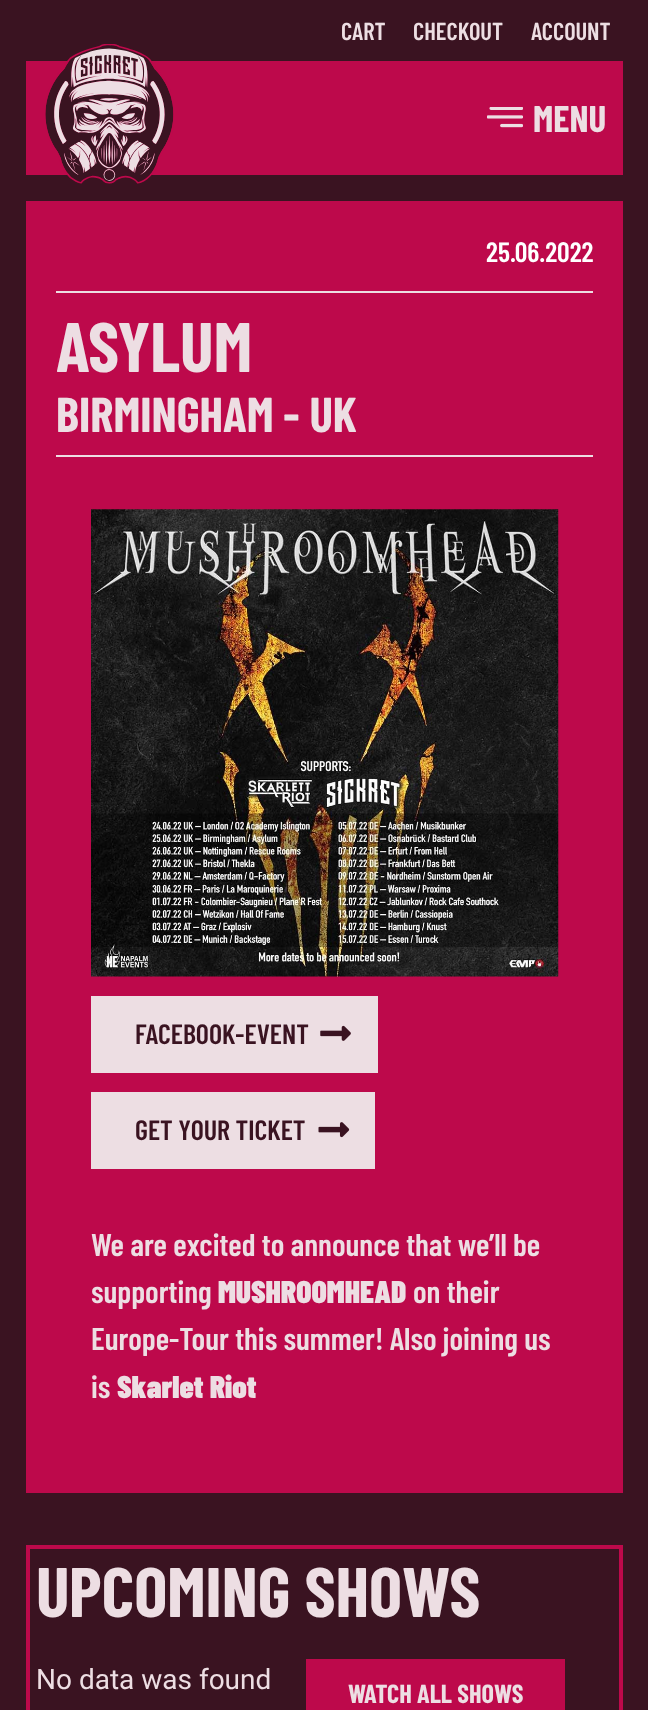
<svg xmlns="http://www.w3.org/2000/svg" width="648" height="1710">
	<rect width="100%" height="100%" fill="#3A1321" />
	<g font-family="Barlow Condensed" font-size="24.5" font-weight="600" fill="#EDDEE3">
		<text x="341" y="40">CART</text>
		<text x="413" y="40">CHECKOUT</text>
		<text x="531" y="40">ACCOUNT</text>
	</g>
	<rect x="26" y="61" width="597" height="114" fill="#BD094B" />
	<image x="45" y="44" width="129" height="140" href="assets/img1.png" />
	<image x="487" y="107" width="36" height="21" href="assets/img2.png" />
	<text x="533" y="132" font-family="Barlow Condensed" font-size="37" font-weight="700" fill="#EDDEE3">MENU</text>
	<rect x="26" y="201" width="597" height="1292" fill="#BD094B" />
	<text x="486" y="262" font-family="Barlow Condensed" font-size="28" font-weight="600" fill="#FFFFFF">25.06.2022</text>
	<rect x="56" y="291" width="537" height="2" fill="#EDDEE3" />
	<text x="56" y="372" font-family="Barlow Condensed" font-size="70" font-weight="700" fill="#EDDEE3">ASYLUM</text>
	<text x="56" y="432" font-family="Barlow Condensed" font-size="49" font-weight="700" fill="#EDDEE3">BIRMINGHAM - UK</text>
	<rect x="56" y="455" width="537" height="2" fill="#EDDEE3" />
	<image x="91" y="509" width="468" height="468" href="assets/img3.png" />
	<rect x="91" y="996" width="287" height="77" fill="#EDDEE3" />
	<text x="135" y="1044" font-family="Barlow Condensed" font-size="28" font-weight="600" fill="#3A1321">FACEBOOK-EVENT</text>
	<image x="320" y="1025" width="31" height="16" href="assets/img4.png" />
	<rect x="91" y="1092" width="284" height="77" fill="#EDDEE3" />
	<text x="135" y="1140" font-family="Barlow Condensed" font-size="28" font-weight="600" fill="#3A1321">GET YOUR TICKET</text>
	<image x="318" y="1122" width="32" height="16" href="assets/img5.png" />
	<g font-family="Barlow Condensed" font-size="31.5" font-weight="600" fill="#EDDEE3">
		<text x="91" y="1256">We are excited to announce that we’ll be</text>
		<text x="91" y="1303">supporting</text>
	</g>
	<text x="218" y="1303" font-family="Barlow Condensed" font-size="31.5" font-weight="900" fill="#EDDEE3">MUSHROOMHEAD</text>
	<g font-family="Barlow Condensed" font-size="31.5" font-weight="600" fill="#EDDEE3">
		<text x="413" y="1303">on their</text>
		<text x="91" y="1350">Europe-Tour this summer! Also joining us</text>
		<text x="91" y="1398">is</text>
	</g>
	<text x="117" y="1398" font-family="Barlow Condensed" font-size="31.5" font-weight="900" fill="#EDDEE3">Skarlet Riot</text>
	<rect x="28" y="1547" width="593" height="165" fill="none" stroke="#BD094B" stroke-width="4" />
	<text x="36" y="1617" font-family="Barlow Condensed" font-size="70" font-weight="700" fill="#EDDEE3">UPCOMING SHOWS</text>
	<text x="36" y="1689" font-family="Roboto" font-size="28" fill="#EDDEE3">No data was found</text>
	<rect x="306" y="1659" width="259" height="51" fill="#BD094B" />
	<text x="348" y="1703" font-family="Barlow Condensed" font-size="26.25" font-weight="700" fill="#EDDEE3">WATCH ALL SHOWS</text>
</svg>
